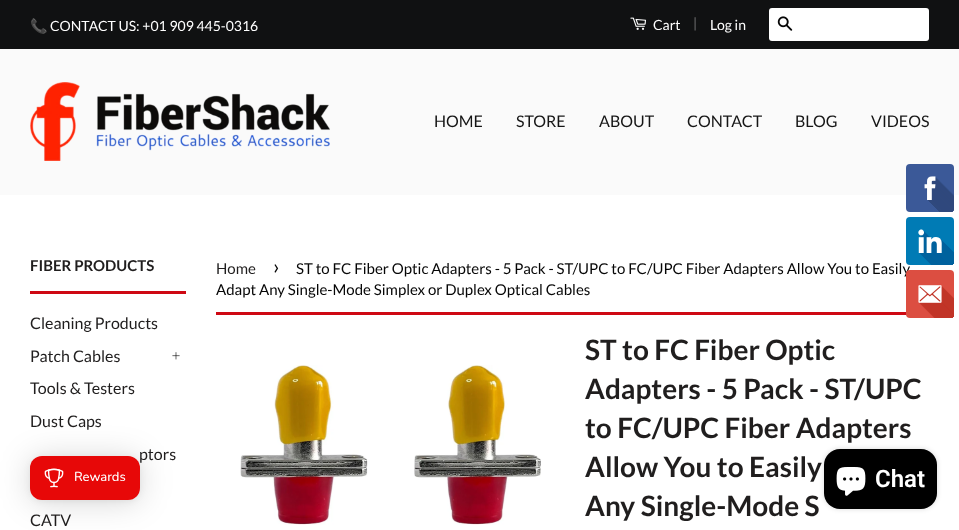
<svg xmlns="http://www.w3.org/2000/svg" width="959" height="530">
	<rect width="100%" height="100%" fill="#FFFFFF" />
	<rect x="0" y="0" width="959" height="49" fill="#101112" />
	<text x="30" y="31" font-family="Noto Color Emoji" font-size="14" fill="#FFFFFF">📞</text>
	<text x="50" y="31" font-family="Lato" font-size="14" fill="#FFFFFF">CONTACT US: +01 909 445-0316</text>
	<image x="630" y="17" width="16" height="13" href="assets/img1.png" />
	<text x="653" y="30" font-family="Lato" font-size="14" fill="#FFFFFF">Cart</text>
	<text x="693" y="28" font-family="Lato" font-size="14" fill="#707071">|</text>
	<text x="710" y="30" font-family="Lato" font-size="14" fill="#FFFFFF">Log in</text>
	<rect x="769" y="8" width="160" height="33" rx="3" fill="#FFFFFF" />
	<image x="777" y="16" width="16" height="15" href="assets/img2.png" />
	<rect x="0" y="49" width="959" height="146" fill="#FAFAFA" />
	<image x="30" y="82" width="300" height="79" href="assets/img3.png" />
	<g font-family="Lato" font-size="16" fill="#151515">
		<text x="434" y="127">HOME</text>
		<text x="516" y="127">STORE</text>
		<text x="599" y="127">ABOUT</text>
		<text x="687" y="127">CONTACT</text>
		<text x="795" y="127">BLOG</text>
		<text x="871" y="127">VIDEOS</text>
	</g>
	<rect x="216" y="312" width="691" height="3" fill="#CE0813" />
	<text x="296" y="274" font-family="Lato" font-size="15" fill="#060606">ST to FC Fiber Optic Adapters - 5 Pack - ST/UPC to FC/UPC Fiber Adapters Allow You to Easily</text>
	<image x="906" y="164" width="48" height="154" href="assets/img4.png" />
	<rect x="30" y="291" width="156" height="3" fill="#CE0813" />
	<text x="30" y="271" font-family="Lato" font-size="15" font-weight="700" fill="#201E1E">FIBER PRODUCTS</text>
	<g font-family="Lato" font-size="16" fill="#201E1E">
		<text x="30" y="329">Cleaning Products</text>
		<text x="30" y="362">Patch Cables</text>
	</g>
	<image x="172" y="352" width="8" height="8" href="assets/img5.png" />
	<g font-family="Lato" font-size="16" fill="#201E1E">
		<text x="30" y="394">Tools &amp; Testers</text>
		<text x="30" y="427">Dust Caps</text>
		<text x="139" y="460">ptors</text>
		<text x="30" y="526">CATV</text>
	</g>
	<text x="216" y="274" font-family="Lato" font-size="15" fill="#201E1E">Home</text>
	<text x="273" y="274" font-family="Lato" font-size="21" fill="#060606">›</text>
	<text x="216" y="295" font-family="Lato" font-size="15" fill="#060606">Adapt Any Single-Mode Simplex or Duplex Optical Cables</text>
	<image x="240" y="365" width="301" height="160" href="assets/img6.png" />
	<g font-family="Lato" font-size="28" font-weight="700" fill="#201E1E">
		<text x="585" y="360">ST to FC Fiber Optic</text>
		<text x="585" y="399">Adapters - 5 Pack - ST/UPC</text>
		<text x="585" y="438">to FC/UPC Fiber Adapters</text>
		<text x="585" y="477">Allow You to Easily</text>
		<text x="585" y="516">Any Single-Mode S</text>
	</g>
	<rect x="30" y="458" width="110" height="44" rx="12" fill="#000000" fill-opacity="0.16" filter="blur(16px)" />
	<rect x="30" y="457" width="110" height="44" rx="12" fill="#000000" fill-opacity="0.06" filter="blur(3px)" />
	<rect x="30" y="456" width="110" height="44" rx="12" fill="#E70808" />
	<image x="44" y="468" width="20" height="20" href="assets/img7.png" />
	<text x="74" y="481" font-family="Nunito" font-size="13" font-weight="500" fill="#FFFFFF">Rewards</text>
	<rect x="824" y="449" width="113" height="60" rx="16" fill="#000000" fill-opacity="0.15" filter="blur(2.5px)" />
	<rect x="824" y="449" width="113" height="60" rx="16" fill="#000000" />
	<image x="836" y="467" width="30" height="29" href="assets/img8.png" />
	<text x="875" y="487" font-family="Roboto" font-size="24" font-weight="600" fill="#FFFFFF">Chat</text>
</svg>
